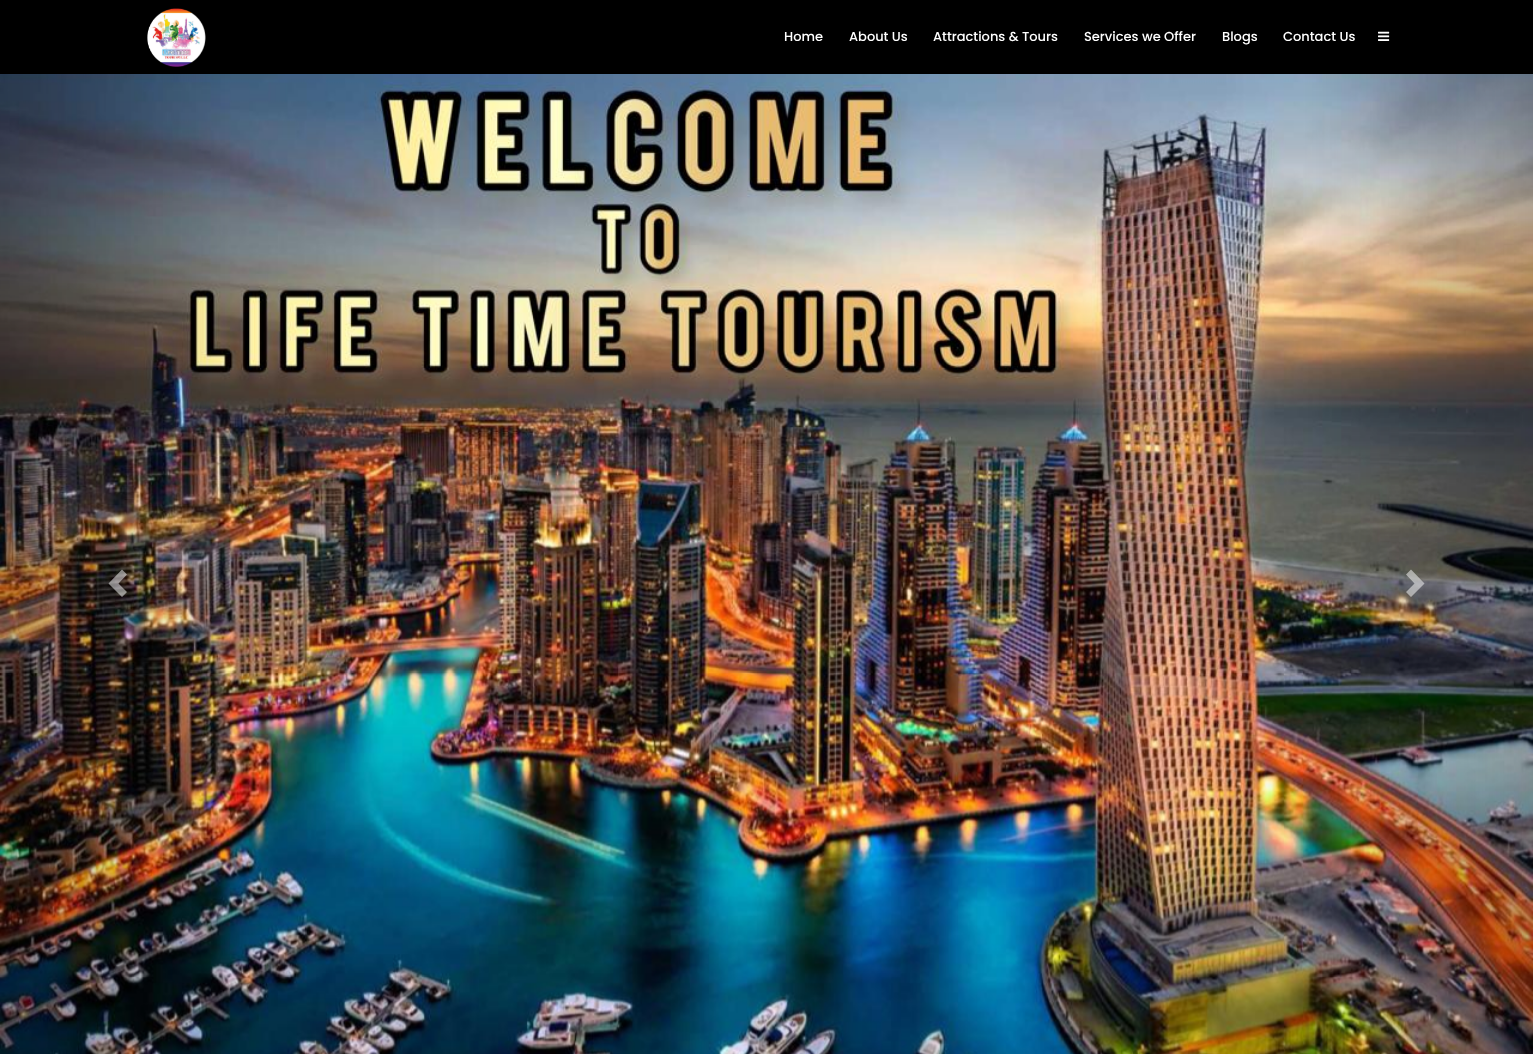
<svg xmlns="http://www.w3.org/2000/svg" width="1533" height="1054">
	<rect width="100%" height="100%" fill="#FFFFFF" />
	<rect x="0" y="0" width="1533" height="74" fill="#000000" />
	<image x="147" y="8" width="59" height="59" href="assets/img1.png" />
	<g font-family="Poppins" font-size="13" font-weight="500" fill="#FFFFFF">
		<text x="784" y="41">Home</text>
		<text x="849" y="41">About Us</text>
		<text x="933" y="41">Attractions &amp; Tours</text>
		<text x="1084" y="41">Services we Offer</text>
		<text x="1222" y="41">Blogs</text>
		<text x="1283" y="41">Contact Us</text>
	</g>
	<image x="1378" y="31" width="12" height="10" href="assets/img2.png" />
	<image x="0" y="74" width="1533" height="980" href="assets/img3.png" />
	<path d="M127 574.5L118.5 583.5L127 592L122 597L108.5 583.5L122 569.5Z" fill="#FFFFFF" fill-opacity="0.5" />
	<path d="M1424.5 583.5L1411 597L1406 592L1414.5 583.5L1406 574.5L1411 569.5Z" fill="#FFFFFF" fill-opacity="0.5" />
</svg>
